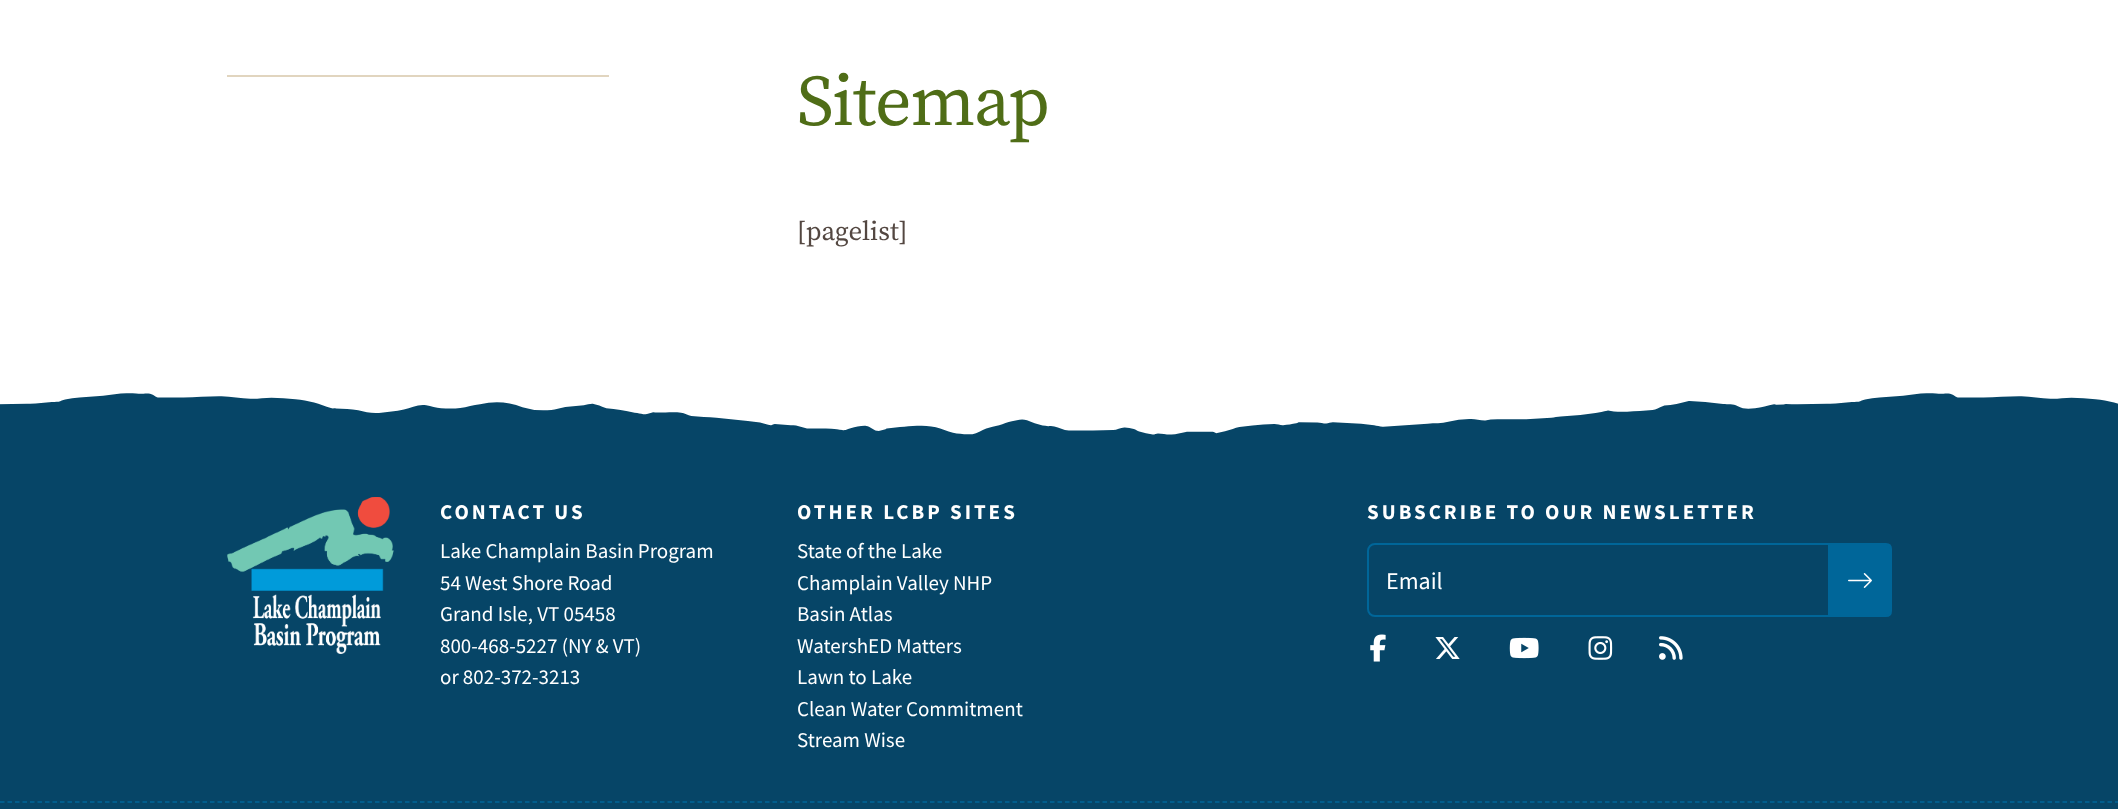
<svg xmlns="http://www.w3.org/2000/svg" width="2118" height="809">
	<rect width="100%" height="100%" fill="#FFFFFF" />
	<rect x="227" y="75" width="382" height="2" fill="#E1D5BF" />
	<text x="797" y="125" font-family="Source Serif Pro" font-size="72" letter-spacing="-1.25" fill="#4F6D17">Sitemap</text>
	<text x="797" y="240" font-family="Source Serif Pro" font-size="27" fill="#534741">[pagelist]</text>
	<rect x="0" y="443" width="2118" height="366" fill="#064567" />
	<image x="0" y="393" width="2118" height="50" href="assets/img1.png" />
	<path d="M0 802H2118" fill="none" stroke="#006699" stroke-width="1.5" stroke-dasharray="4.5 3" />
	<image x="227" y="497" width="167" height="157" href="assets/img2.png" />
	<text x="440" y="519" font-family="Source Sans Pro" font-size="21" font-weight="700" letter-spacing="3" fill="#FFFFFF">CONTACT US</text>
	<g font-family="Source Sans Pro" font-size="21" fill="#FFFFFF">
		<text x="440" y="558">Lake Champlain Basin Program</text>
		<text x="440" y="590">54 West Shore Road</text>
		<text x="440" y="621">Grand Isle, VT 05458</text>
		<text x="440" y="653">800-468-5227 (NY &amp; VT)</text>
		<text x="440" y="684">or 802-372-3213</text>
	</g>
	<text x="797" y="519" font-family="Source Sans Pro" font-size="21" font-weight="700" letter-spacing="3" fill="#FFFFFF">OTHER LCBP SITES</text>
	<g font-family="Source Sans Pro" font-size="21" fill="#FFFFFF">
		<text x="797" y="558">State of the Lake</text>
		<text x="797" y="590">Champlain Valley NHP</text>
		<text x="797" y="621">Basin Atlas</text>
		<text x="797" y="653">WatershED Matters</text>
		<text x="797" y="684">Lawn to Lake</text>
		<text x="797" y="716">Clean Water Commitment</text>
		<text x="797" y="747">Stream Wise</text>
	</g>
	<text x="1367" y="519" font-family="Source Sans Pro" font-size="21" font-weight="700" letter-spacing="3" fill="#FFFFFF">SUBSCRIBE TO OUR NEWSLETTER</text>
	<path d="M1375 544H1829V616H1375C1371 616 1368 613 1368 609V551C1368 547 1371 544 1375 544Z" fill="none" stroke="#006699" stroke-width="2" />
	<text x="1386" y="589" font-family="Source Sans Pro" font-size="24" fill="#FFFFFF">Email</text>
	<path d="M1830 544H1886C1889 544 1891 546 1891 549V611C1891 614 1889 616 1886 616H1830Z" fill="#006699" stroke="#006699" stroke-width="2" />
	<image x="1848" y="573" width="24" height="15" href="assets/img3.png" />
	<image x="1370" y="634" width="16" height="28" href="assets/img4.png" />
	<image x="1435" y="637" width="25" height="22" href="assets/img5.png" />
	<image x="1509" y="637" width="30" height="22" href="assets/img6.png" />
	<image x="1588" y="636" width="25" height="24" href="assets/img7.png" />
	<image x="1659" y="636" width="24" height="24" href="assets/img8.png" />
</svg>
